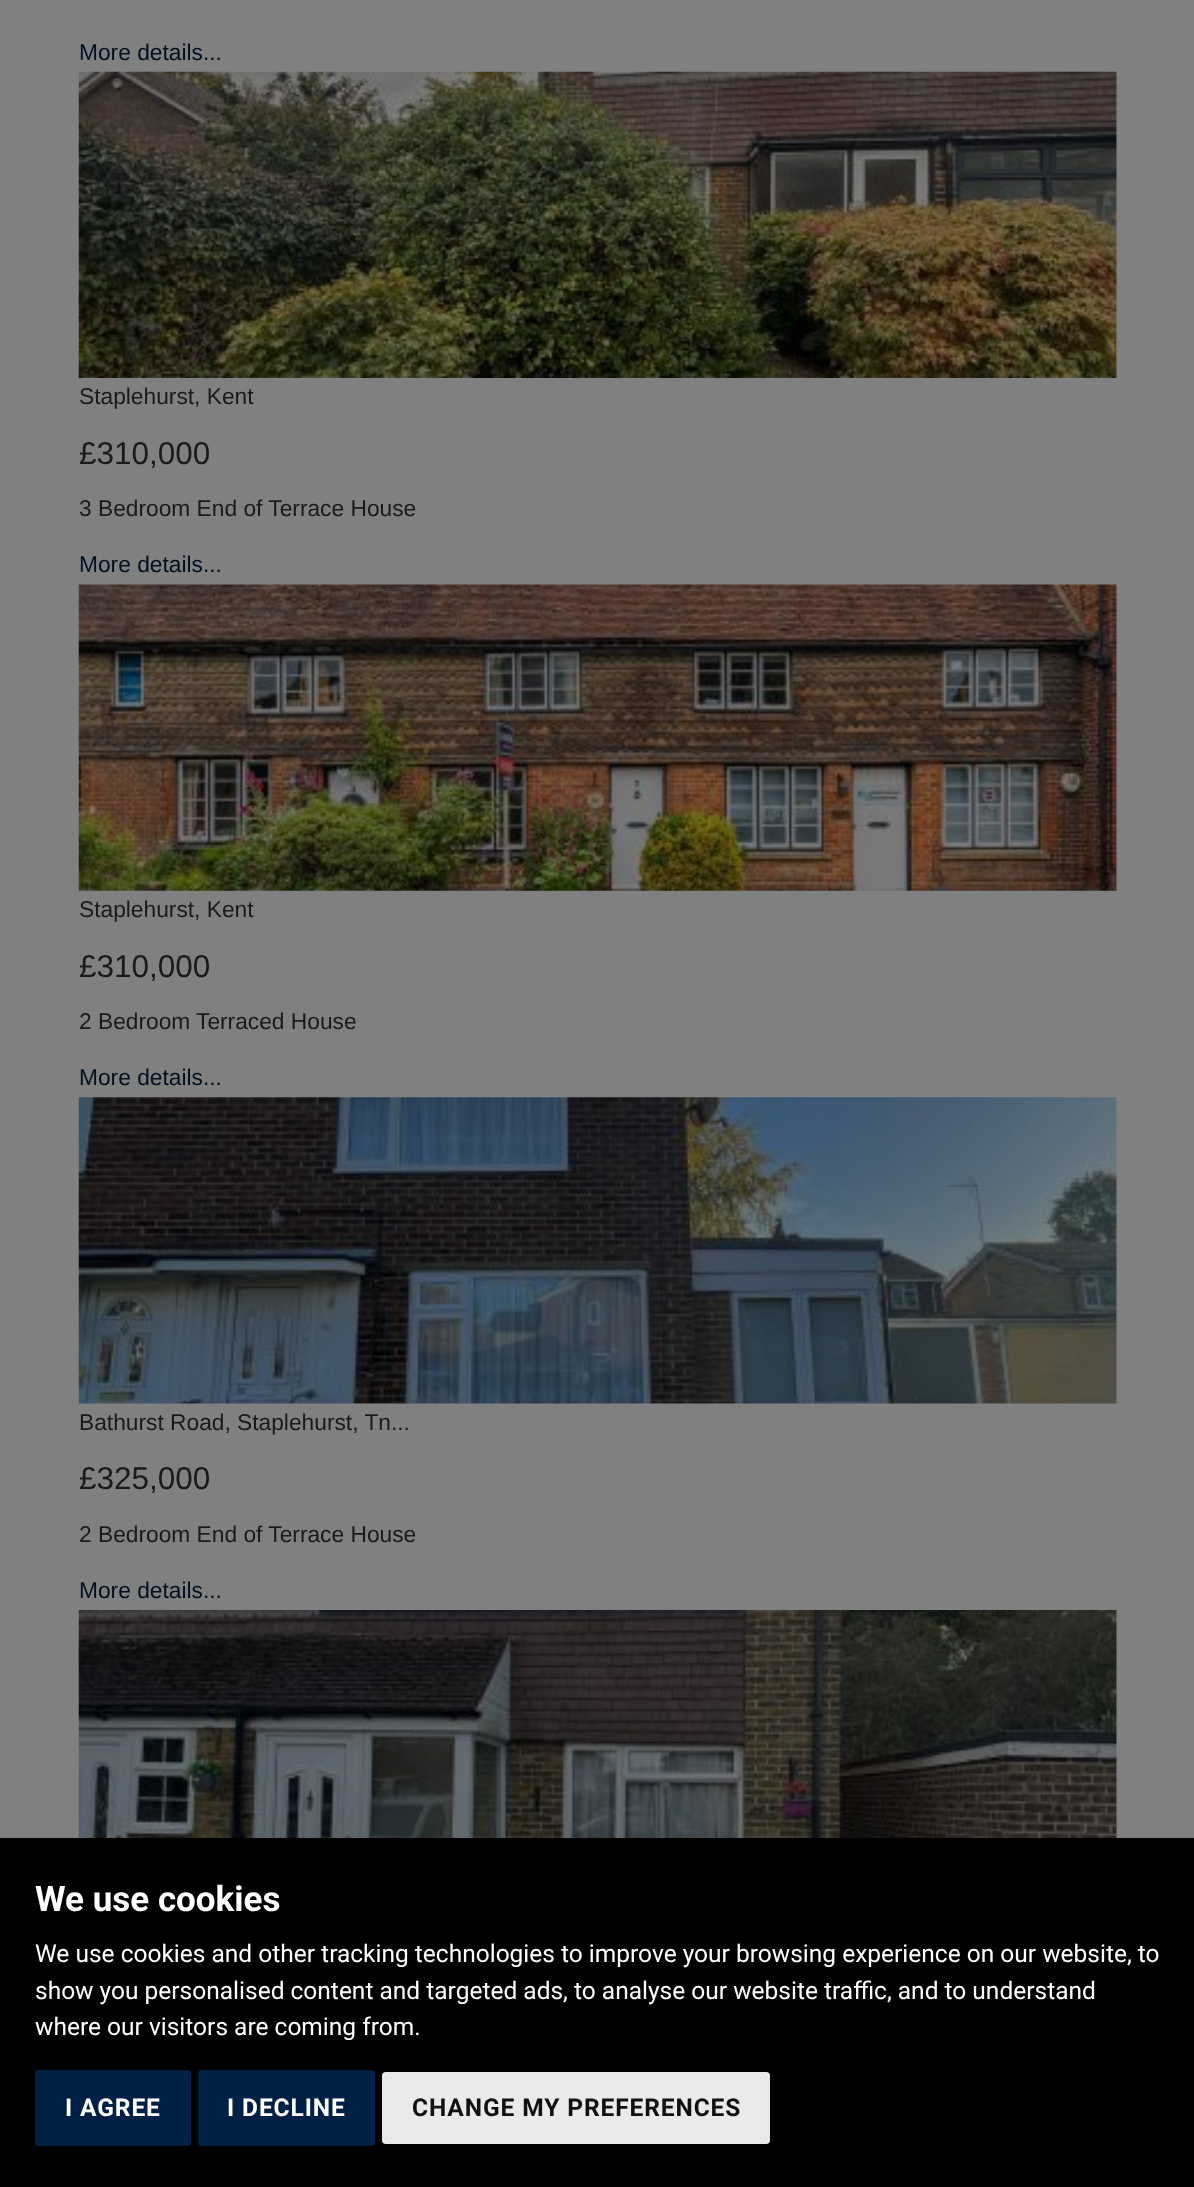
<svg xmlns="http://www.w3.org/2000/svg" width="1194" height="2187">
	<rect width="100%" height="100%" fill="#808080" />
	<text x="79" y="60" font-family="Liberation Sans" font-size="22.75" fill="#001023">More details...</text>
	<image x="78" y="71" width="1039" height="307" href="assets/img1.png" />
	<text x="79" y="404" font-family="Liberation Sans" font-size="22.75" fill="#1A1A1A">Staplehurst, Kent</text>
	<text x="79" y="464" font-family="Liberation Sans" font-size="31.5" fill="#1A1A1A">£310,000</text>
	<text x="79" y="516" font-family="Liberation Sans" font-size="22.75" fill="#1A1A1A">3 Bedroom End of Terrace House</text>
	<text x="79" y="572" font-family="Liberation Sans" font-size="22.75" fill="#001023">More details...</text>
	<image x="78" y="584" width="1039" height="307" href="assets/img2.png" />
	<text x="79" y="917" font-family="Liberation Sans" font-size="22.75" fill="#1A1A1A">Staplehurst, Kent</text>
	<text x="79" y="977" font-family="Liberation Sans" font-size="31.5" fill="#1A1A1A">£310,000</text>
	<g font-family="Liberation Sans" font-size="22.75" fill="#1A1A1A">
		<text x="79" y="1029">2 Bedroom</text>
		<text x="196" y="1029">Terraced House</text>
	</g>
	<text x="79" y="1085" font-family="Liberation Sans" font-size="22.75" fill="#001023">More details...</text>
	<image x="78" y="1097" width="1039" height="307" href="assets/img3.png" />
	<text x="79" y="1430" font-family="Liberation Sans" font-size="22.75" fill="#1A1A1A">Bathurst Road, Staplehurst, Tn...</text>
	<text x="79" y="1489" font-family="Liberation Sans" font-size="31.5" fill="#1A1A1A">£325,000</text>
	<text x="79" y="1542" font-family="Liberation Sans" font-size="22.75" fill="#1A1A1A">2 Bedroom End of Terrace House</text>
	<text x="79" y="1598" font-family="Liberation Sans" font-size="22.75" fill="#001023">More details...</text>
	<image x="78" y="1610" width="1039" height="228" href="assets/img4.png" />
	<rect x="0" y="1838" width="1194" height="349" fill="#000000" />
	<text x="35" y="1911" font-family="Roboto" font-size="35" font-weight="700" fill="#FFFFFF">We use cookies</text>
	<g font-family="Roboto" font-size="24.5" fill="#FFFFFF">
		<text x="35" y="1962">We use cookies and other tracking technologies to improve your browsing experience on our website, to</text>
		<text x="35" y="1999">show you personalised content and targeted ads, to analyse our website traffic, and to understand</text>
		<text x="35" y="2035">where our visitors are coming from.</text>
	</g>
	<rect x="35" y="2070" width="156" height="76" rx="4" fill="#002046" />
	<text x="65" y="2116" font-family="Roboto" font-size="24.5" font-weight="700" letter-spacing="0.9" fill="#FFFFFF">I AGREE</text>
	<rect x="198" y="2070" width="177" height="76" rx="4" fill="#002046" />
	<text x="227" y="2116" font-family="Roboto" font-size="24.5" font-weight="700" letter-spacing="0.9" fill="#FFFFFF">I DECLINE</text>
	<rect x="382" y="2072" width="388" height="72" rx="4" fill="#EAEAEA" />
	<text x="412" y="2116" font-family="Roboto" font-size="24.5" font-weight="700" letter-spacing="0.9" fill="#111111">CHANGE MY PREFERENCES</text>
</svg>
